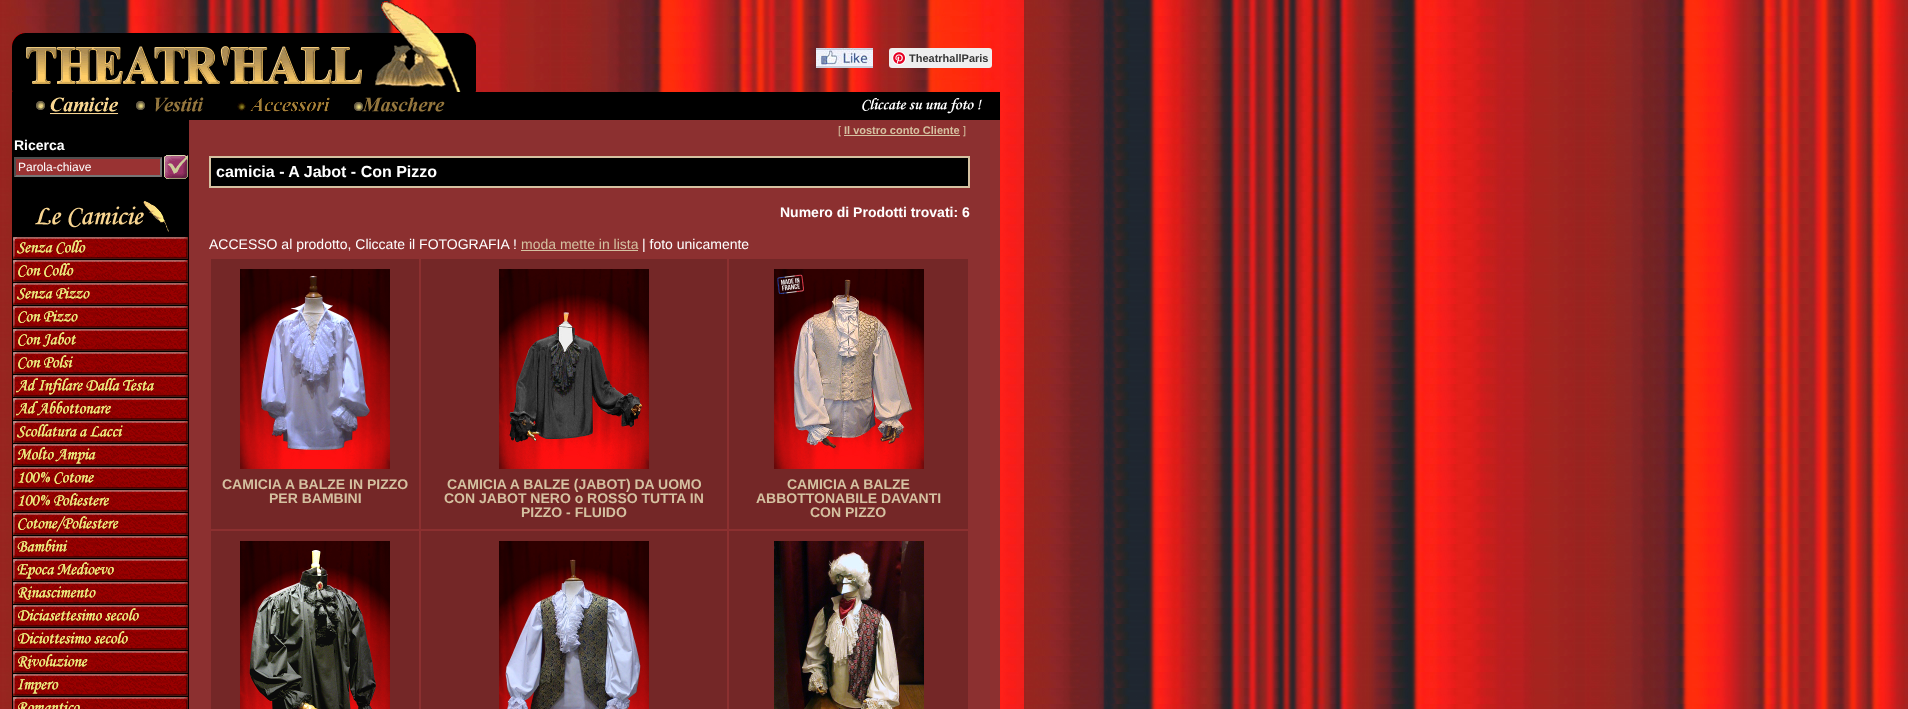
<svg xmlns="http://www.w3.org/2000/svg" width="1908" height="709">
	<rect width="100%" height="100%" fill="#FFFFFF" />
	<image x="0" y="0" width="1908" height="709" href="assets/img1.png" />
	<image x="12" y="1" width="464" height="91" href="assets/img2.png" />
	<image x="816" y="48" width="57" height="20" href="assets/img3.png" />
	<rect x="889" y="48" width="103" height="20" rx="3" fill="#EFEFEF" />
	<image x="892" y="51" width="14" height="14" href="assets/img4.png" />
	<text x="909" y="62" font-family="Liberation Sans" font-size="11" font-weight="700" fill="#363636">TheatrhallParis</text>
	<rect x="12" y="92" width="988" height="28" fill="#000000" />
	<image x="0" y="92" width="12" height="28" href="assets/img5.png" />
	<image x="36" y="97" width="83" height="18" href="assets/img6.png" />
	<image x="136" y="97" width="68" height="15" href="assets/img7.png" />
	<image x="237" y="97" width="93" height="15" href="assets/img8.png" />
	<image x="354" y="97" width="91" height="15" href="assets/img9.png" />
	<image x="862" y="98" width="120" height="16" href="assets/img10.png" />
	<rect x="189" y="120" width="811" height="589" fill="#8C3030" />
	<rect x="12" y="120" width="177" height="589" fill="#000000" />
	<text x="14" y="150" font-family="Liberation Sans" font-size="14" font-weight="700" fill="#FFFFFF">Ricerca</text>
	<rect x="14" y="157" width="148" height="20" fill="#993333" />
	<path d="M14 157H162L160 159H16Z" fill="#4F4F4F" />
	<path d="M162 157V177L160 175V159Z" fill="#767676" />
	<path d="M162 177H14L16 175H160Z" fill="#767676" />
	<path d="M14 177V157L16 159V175Z" fill="#4F4F4F" />
	<text x="18" y="171" font-family="Liberation Sans" font-size="12" fill="#FFFFFF">Parola-chiave</text>
	<image x="164" y="155" width="24" height="24" href="assets/img11.png" />
	<image x="35" y="201" width="134" height="31" href="assets/img12.png" />
	<image x="13" y="237" width="175" height="22" href="assets/img13.png" />
	<image x="13" y="260" width="175" height="22" href="assets/img14.png" />
	<image x="13" y="283" width="175" height="22" href="assets/img15.png" />
	<image x="13" y="306" width="175" height="22" href="assets/img16.png" />
	<image x="13" y="329" width="175" height="22" href="assets/img17.png" />
	<image x="13" y="352" width="175" height="22" href="assets/img18.png" />
	<image x="13" y="375" width="175" height="22" href="assets/img19.png" />
	<image x="13" y="398" width="175" height="22" href="assets/img20.png" />
	<image x="13" y="421" width="175" height="22" href="assets/img21.png" />
	<image x="13" y="444" width="175" height="22" href="assets/img22.png" />
	<image x="13" y="467" width="175" height="22" href="assets/img23.png" />
	<image x="13" y="490" width="175" height="22" href="assets/img24.png" />
	<image x="13" y="513" width="175" height="22" href="assets/img25.png" />
	<image x="13" y="536" width="175" height="22" href="assets/img26.png" />
	<image x="13" y="559" width="175" height="22" href="assets/img27.png" />
	<image x="13" y="582" width="175" height="22" href="assets/img28.png" />
	<image x="13" y="605" width="175" height="22" href="assets/img29.png" />
	<image x="13" y="628" width="175" height="22" href="assets/img30.png" />
	<image x="13" y="651" width="175" height="22" href="assets/img31.png" />
	<image x="13" y="674" width="175" height="22" href="assets/img32.png" />
	<image x="13" y="697" width="175" height="12" href="assets/img33.png" />
	<text x="838" y="134" font-family="Liberation Sans" font-size="11" fill="#D5C1A1">[</text>
	<rect x="844" y="135" width="116" height="1" fill="#D5C1A1" />
	<text x="844" y="134" font-family="Liberation Sans" font-size="11" font-weight="700" fill="#D5C1A1">Il vostro conto Cliente</text>
	<text x="963" y="134" font-family="Liberation Sans" font-size="11" fill="#D5C1A1">]</text>
	<rect x="209" y="156" width="761" height="32" fill="#D5C1A1" />
	<rect x="211" y="158" width="757" height="28" fill="#000000" />
	<text x="216" y="177" font-family="Liberation Sans" font-size="16" font-weight="700" fill="#FFFFFF">camicia - A Jabot - Con Pizzo</text>
	<text x="780" y="217" font-family="Liberation Sans" font-size="14" font-weight="700" fill="#FFFFFF">Numero di Prodotti trovati: 6</text>
	<text x="209" y="249" font-family="Liberation Sans" font-size="14" fill="#FFFFFF">ACCESSO al prodotto, Cliccate il FOTOGRAFIA !</text>
	<text x="521" y="249" font-family="Liberation Sans" font-size="14" fill="#D5C1A1">moda mette in lista</text>
	<rect x="521" y="250" width="117" height="1" fill="#D5C1A1" />
	<text x="642" y="249" font-family="Liberation Sans" font-size="14" fill="#FFFFFF">| foto unicamente</text>
	<rect x="211" y="259" width="208" height="270" fill="#742727" />
	<image x="240" y="269" width="150" height="200" href="assets/img34.png" />
	<g font-family="Liberation Sans" font-size="14" font-weight="700" fill="#D5C1A1">
		<text x="222" y="489">CAMICIA</text>
		<text x="285" y="489">A BALZE IN PIZZO</text>
		<text x="269" y="503">PER BAMBINI</text>
	</g>
	<rect x="421" y="259" width="306" height="270" fill="#742727" />
	<image x="499" y="269" width="150" height="200" href="assets/img35.png" />
	<g font-family="Liberation Sans" font-size="14" font-weight="700" fill="#D5C1A1">
		<text x="447" y="489">CAMICIA A BALZE (JABOT) DA UOMO</text>
		<text x="444" y="503">CON JABOT NERO o ROSSO TUTTA IN</text>
		<text x="521" y="517">PIZZO - FLUIDO</text>
	</g>
	<rect x="729" y="259" width="239" height="270" fill="#742727" />
	<image x="774" y="269" width="150" height="200" href="assets/img36.png" />
	<g font-family="Liberation Sans" font-size="14" font-weight="700" fill="#D5C1A1">
		<text x="787" y="489">CAMICIA A BALZE</text>
		<text x="756" y="503">ABBOTTONABILE DAVANTI</text>
		<text x="810" y="517">CON PIZZO</text>
	</g>
	<rect x="211" y="531" width="208" height="178" fill="#742727" />
	<image x="240" y="541" width="150" height="168" href="assets/img37.png" />
	<rect x="421" y="531" width="306" height="178" fill="#742727" />
	<image x="499" y="541" width="150" height="168" href="assets/img38.png" />
	<rect x="729" y="531" width="239" height="178" fill="#742727" />
	<image x="774" y="541" width="150" height="168" href="assets/img39.png" />
</svg>
